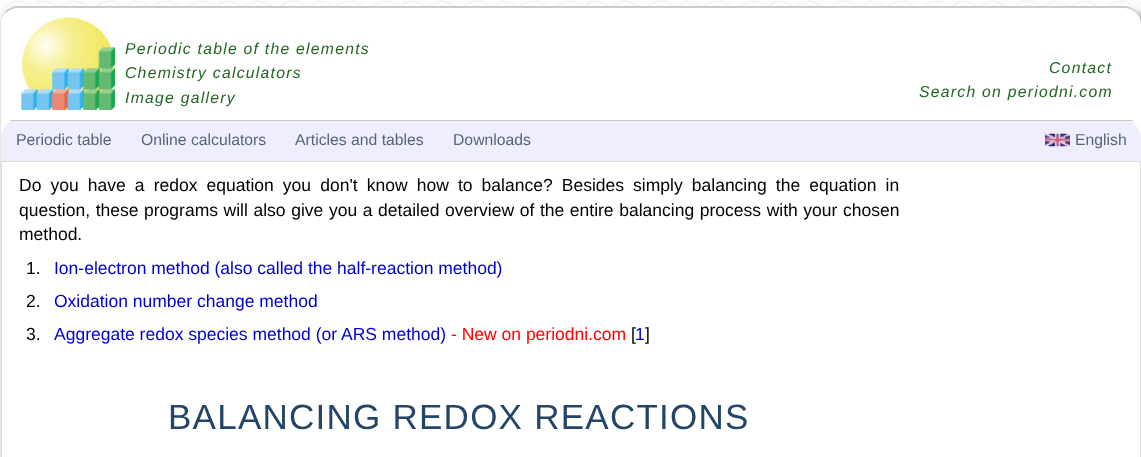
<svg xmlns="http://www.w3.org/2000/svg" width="1141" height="457">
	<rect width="100%" height="100%" fill="#FFFFFF" />
	<image x="0" y="0" width="1141" height="24" href="assets/img1.png" />
	<rect x="6" y="13" width="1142" height="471" rx="18" fill="#888888" filter="blur(3px)" />
	<rect x="0" y="6" width="1141" height="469" rx="18" fill="#FFFFFF" />
	<path d="M18 8C14 8 9 10 6 13L5 11C8 9 11 7 15 6H1127C1135 8 1141 15 1141 24C1141 15 1133 8 1124 8Z" fill="#CCCCCC" />
	<path d="M0 24V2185C0 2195 8 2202 18 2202C9 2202 1 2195 1 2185V24C1 19 3 15 6 13L5 11C2 15 0 19 0 24Z" fill="#E6E6E6" />
	<image x="21" y="17" width="94" height="93" href="assets/img2.png" />
	<g font-family="Liberation Sans" font-size="15.75" font-style="italic" letter-spacing="1.25" fill="#226622">
		<text x="125" y="54">Periodic table of the elements</text>
		<text x="125" y="78">Chemistry calculators</text>
		<text x="125" y="103">Image gallery</text>
		<text x="1049" y="73">Contact</text>
		<text x="919" y="97">Search on periodni.com</text>
	</g>
	<rect x="1" y="120" width="1140" height="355" rx="18" fill="#EEEEFF" />
	<rect x="10" y="120" width="1123" height="1" fill="#CACABA" />
	<g font-family="Liberation Sans" font-size="15.75" fill="#556677">
		<text x="16" y="145">Periodic table</text>
		<text x="141" y="145">Online calculators</text>
		<text x="295" y="145">Articles and tables</text>
		<text x="453" y="145">Downloads</text>
	</g>
	<image x="1045" y="133" width="25" height="14" href="assets/img3.png" />
	<text x="1075" y="145" font-family="Liberation Sans" font-size="15.75" fill="#556677">English</text>
	<rect x="1.5" y="161.5" width="1139" height="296" fill="#FFFFFF" stroke="#DDDDDD" />
	<g font-family="Liberation Sans" font-size="17.5" fill="#000000">
		<text x="19" y="191" word-spacing="4.25">Do you have a redox equation you don't know how to balance? Besides simply balancing the equation in</text>
		<text x="19" y="216" word-spacing="0.75">question, these programs will also give you a detailed overview of the entire balancing process with your chosen</text>
		<text x="19" y="240">method.</text>
		<text x="26" y="274">1.</text>
	</g>
	<text x="54" y="274" font-family="Liberation Sans" font-size="17.5" fill="#0000CC">Ion-electron method (also called the half-reaction method)</text>
	<text x="26" y="307" font-family="Liberation Sans" font-size="17.5" fill="#000000">2.</text>
	<text x="54" y="307" font-family="Liberation Sans" font-size="17.5" fill="#0000CC">Oxidation number change method</text>
	<text x="26" y="340" font-family="Liberation Sans" font-size="17.5" fill="#000000">3.</text>
	<text x="54" y="340" font-family="Liberation Sans" font-size="17.5" fill="#0000CC">Aggregate redox species method (or ARS method)</text>
	<text x="451" y="340" font-family="Liberation Sans" font-size="17.5" fill="#FF0000">- New on periodni.com</text>
	<text x="631" y="340" font-family="Liberation Sans" font-size="17.5" fill="#000000">[</text>
	<text x="635" y="340" font-family="Liberation Sans" font-size="17.5" fill="#0000CC">1</text>
	<text x="645" y="340" font-family="Liberation Sans" font-size="17.5" fill="#000000">]</text>
	<text x="168" y="429" font-family="Liberation Sans" font-size="35" letter-spacing="1.25" fill="#234567">BALANCING REDOX REACTIONS</text>
</svg>
